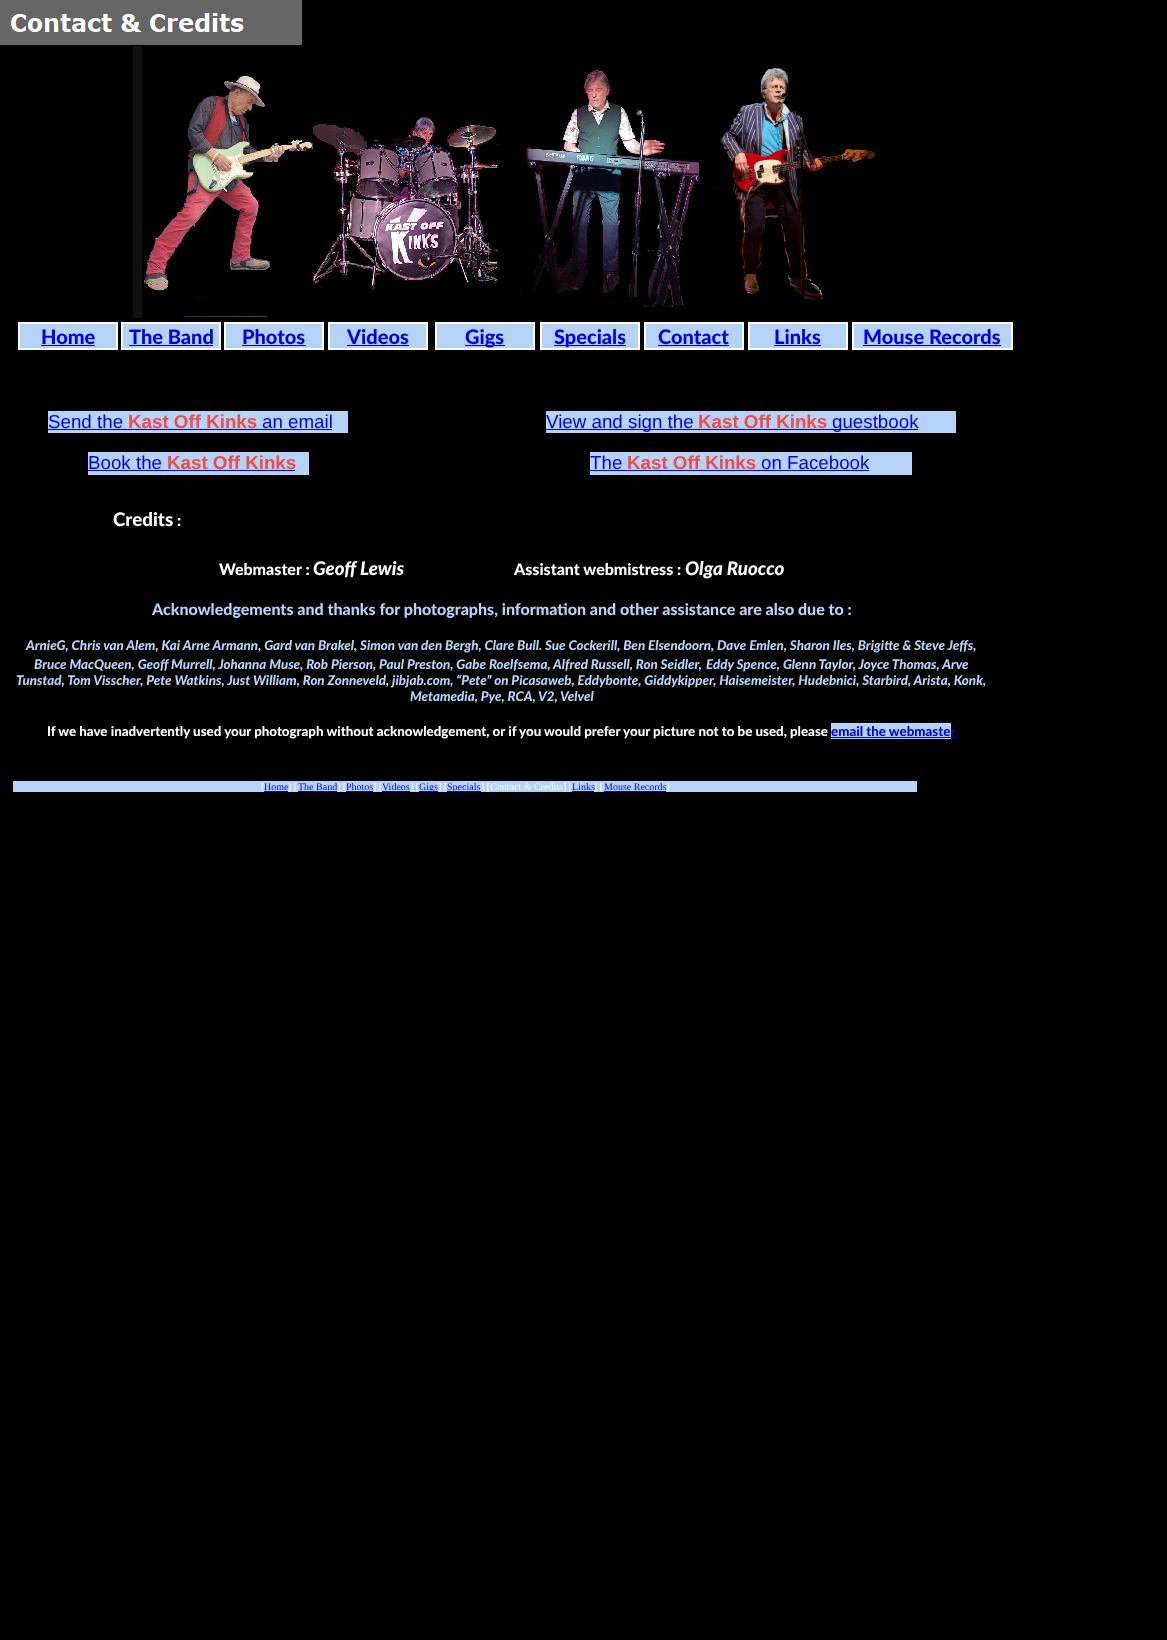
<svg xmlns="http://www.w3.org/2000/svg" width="1167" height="1640">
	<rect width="100%" height="100%" fill="#000000" />
	<image x="0" y="0" width="302" height="45" href="assets/img1.png" />
	<image x="133" y="46" width="743" height="272" href="assets/img2.png" />
	<rect x="19" y="323" width="98" height="26" fill="#B4D3F7" stroke="#FFFFFF" stroke-width="2" />
	<text x="41" y="344" font-family="Lato" font-size="20" font-weight="900" fill="#0000EE">Home</text>
	<rect x="41" y="345" width="54" height="1" fill="#0000EE" />
	<rect x="122" y="323" width="98" height="26" fill="#B4D3F7" stroke="#FFFFFF" stroke-width="2" />
	<text x="129" y="344" font-family="Lato" font-size="20" font-weight="900" fill="#0000EE">The Band</text>
	<rect x="129" y="345" width="84" height="1" fill="#0000EE" />
	<rect x="225" y="323" width="98" height="26" fill="#B4D3F7" stroke="#FFFFFF" stroke-width="2" />
	<text x="242" y="344" font-family="Lato" font-size="20" font-weight="900" fill="#0000EE">Photos</text>
	<rect x="242" y="345" width="64" height="1" fill="#0000EE" />
	<rect x="329" y="323" width="98" height="26" fill="#B4D3F7" stroke="#FFFFFF" stroke-width="2" />
	<text x="347" y="344" font-family="Lato" font-size="20" font-weight="900" fill="#0000EE">Videos</text>
	<rect x="347" y="345" width="62" height="1" fill="#0000EE" />
	<rect x="48" y="411" width="300" height="22" fill="#B4D3F7" />
	<text x="48" y="428" font-family="Liberation Sans" font-size="18.75" fill="#0000EE">Send the</text>
	<rect x="48" y="429" width="284" height="1" fill="#0000EE" />
	<text x="128" y="428" font-family="Liberation Sans" font-size="18.75" font-weight="700" fill="#F14A47">Kast Off Kinks</text>
	<text x="262" y="428" font-family="Liberation Sans" font-size="18.75" fill="#0000EE">an email</text>
	<rect x="88" y="452" width="221" height="23" fill="#B4D3F7" />
	<text x="88" y="469" font-family="Liberation Sans" font-size="18.75" fill="#0000EE">Book the</text>
	<rect x="88" y="470" width="207" height="1" fill="#0000EE" />
	<text x="167" y="469" font-family="Liberation Sans" font-size="18.75" font-weight="700" fill="#F14A47">Kast Off Kinks</text>
	<text x="113" y="526" font-family="Lato" font-size="18.75" font-weight="900" fill="#FFFFFF">Credits</text>
	<text x="177" y="526" font-family="Lato" font-size="16" font-weight="900" fill="#FFFFFF">:</text>
	<rect x="436" y="323" width="98" height="26" fill="#B4D3F7" stroke="#FFFFFF" stroke-width="2" />
	<rect x="465" y="345" width="40" height="1" fill="#0000EE" />
	<text x="465" y="344" font-family="Lato" font-size="20" font-weight="900" fill="#0000EE">Gigs</text>
	<rect x="541" y="323" width="98" height="26" fill="#B4D3F7" stroke="#FFFFFF" stroke-width="2" />
	<rect x="554" y="345" width="72" height="1" fill="#0000EE" />
	<text x="554" y="344" font-family="Lato" font-size="20" font-weight="900" fill="#0000EE">Specials</text>
	<rect x="645" y="323" width="98" height="26" fill="#B4D3F7" stroke="#FFFFFF" stroke-width="2" />
	<text x="658" y="344" font-family="Lato" font-size="20" font-weight="900" fill="#0000EE">Contact</text>
	<rect x="658" y="345" width="71" height="1" fill="#0000EE" />
	<rect x="749" y="323" width="98" height="26" fill="#B4D3F7" stroke="#FFFFFF" stroke-width="2" />
	<text x="774" y="344" font-family="Lato" font-size="20" font-weight="900" fill="#0000EE">Links</text>
	<rect x="774" y="345" width="47" height="1" fill="#0000EE" />
	<rect x="853" y="323" width="159" height="26" fill="#B4D3F7" stroke="#FFFFFF" stroke-width="2" />
	<text x="863" y="344" font-family="Lato" font-size="20" font-weight="900" fill="#0000EE">Mouse Records</text>
	<rect x="863" y="345" width="138" height="1" fill="#0000EE" />
	<rect x="546" y="411" width="410" height="22" fill="#B4D3F7" />
	<rect x="546" y="429" width="372" height="1" fill="#0000EE" />
	<text x="546" y="428" font-family="Liberation Sans" font-size="18.75" fill="#0000EE">View and sign the</text>
	<text x="698" y="428" font-family="Liberation Sans" font-size="18.75" font-weight="700" fill="#F14A47">Kast Off Kinks</text>
	<text x="832" y="428" font-family="Liberation Sans" font-size="18.75" fill="#0000EE">guestbook</text>
	<rect x="590" y="452" width="322" height="23" fill="#B4D3F7" />
	<text x="590" y="469" font-family="Liberation Sans" font-size="18.75" fill="#0000EE">The</text>
	<rect x="590" y="470" width="279" height="1" fill="#0000EE" />
	<text x="627" y="469" font-family="Liberation Sans" font-size="18.75" font-weight="700" fill="#F14A47">Kast Off Kinks</text>
	<text x="761" y="469" font-family="Liberation Sans" font-size="18.75" fill="#0000EE">on Facebook</text>
	<text x="219" y="575" font-family="Lato" font-size="16" font-weight="900" fill="#FFFFFF">Webmaster :</text>
	<text x="313" y="575" font-family="Lato" font-size="18.75" font-weight="900" font-style="italic" fill="#FFFFFF">Geoff Lewis</text>
	<text x="514" y="575" font-family="Lato" font-size="16" font-weight="900" fill="#FFFFFF">Assistant webmistress :</text>
	<text x="685" y="575" font-family="Lato" font-size="18.75" font-weight="900" font-style="italic" fill="#FFFFFF">Olga Ruocco</text>
	<text x="152" y="615" font-family="Lato" font-size="16" font-weight="900" fill="#B4D3F7">Acknowledgements and thanks for photographs, information and other assistance are also due to :</text>
	<g font-family="Lato" font-size="13.33" font-weight="900" font-style="italic" fill="#B4D3F7">
		<text x="26" y="650">ArnieG, Chris van Alem, Kai Arne Armann, Gard van Brakel, Simon van den Bergh, Clare Bull. Sue Cockerill, Ben Elsendoorn, Dave Emlen, Sharon Iles, Brigitte &amp; Steve Jeffs,</text>
		<text x="34" y="669">Bruce MacQueen, Geoff Murrell, Johanna Muse, Rob Pierson, Paul Preston, Gabe Roelfsema, Alfred Russell, Ron Seidler,</text>
		<text x="706" y="669">Eddy Spence, Glenn Taylor, Joyce Thomas, Arve</text>
		<text x="16" y="685">Tunstad, Tom Visscher, Pete Watkins, Just William, Ron Zonneveld, jibjab.com, “Pete” on Picasaweb, Eddybonte, Giddykipper, Haisemeister, Hudebnici, Starbird, Arista, Konk,</text>
		<text x="410" y="701">Metamedia, Pye, RCA, V2, Velvel</text>
	</g>
	<text x="47" y="736" font-family="Lato" font-size="13.33" font-weight="900" fill="#FFFFFF">If we have inadvertently used your photograph without acknowledgement, or if you would prefer your picture not to be used, please</text>
	<rect x="831" y="723" width="120" height="16" fill="#B4D3F7" />
	<text x="831" y="736" font-family="Lato" font-size="13.33" font-weight="900" fill="#0000EE">email the webmaster</text>
	<rect x="831" y="737" width="125" height="1" fill="#0000EE" />
	<rect x="13" y="781" width="904" height="11" fill="#B4D3F7" />
	<text x="261" y="790" font-family="Liberation Serif" font-size="10" fill="#FFFFFF">[</text>
	<text x="264" y="790" font-family="Liberation Serif" font-size="10" fill="#0000EE">Home</text>
	<rect x="264" y="791" width="24" height="1" fill="#0000EE" />
	<text x="288" y="790" font-family="Liberation Serif" font-size="10" fill="#FFFFFF">] [</text>
	<text x="298" y="790" font-family="Liberation Serif" font-size="10" fill="#0000EE">The Band</text>
	<rect x="298" y="791" width="39" height="1" fill="#0000EE" />
	<text x="337" y="790" font-family="Liberation Serif" font-size="10" fill="#FFFFFF">] [</text>
	<text x="346" y="790" font-family="Liberation Serif" font-size="10" fill="#0000EE">Photos</text>
	<rect x="346" y="791" width="27" height="1" fill="#0000EE" />
	<text x="373" y="790" font-family="Liberation Serif" font-size="10" fill="#FFFFFF">] [</text>
	<text x="382" y="790" font-family="Liberation Serif" font-size="10" fill="#0000EE">Videos</text>
	<rect x="382" y="791" width="28" height="1" fill="#0000EE" />
	<text x="410" y="790" font-family="Liberation Serif" font-size="10" fill="#FFFFFF">] [</text>
	<rect x="419" y="791" width="19" height="1" fill="#0000EE" />
	<text x="419" y="790" font-family="Liberation Serif" font-size="10" fill="#0000EE">Gigs</text>
	<text x="438" y="790" font-family="Liberation Serif" font-size="10" fill="#FFFFFF">] [</text>
	<rect x="447" y="791" width="34" height="1" fill="#0000EE" />
	<text x="447" y="790" font-family="Liberation Serif" font-size="10" fill="#0000EE">Specials</text>
	<text x="481" y="790" font-family="Liberation Serif" font-size="10" fill="#FFFFFF">] [Contact &amp; Credits] [</text>
	<text x="572" y="790" font-family="Liberation Serif" font-size="10" fill="#0000EE">Links</text>
	<rect x="572" y="791" width="22" height="1" fill="#0000EE" />
	<text x="594" y="790" font-family="Liberation Serif" font-size="10" fill="#FFFFFF">] [</text>
	<text x="604" y="790" font-family="Liberation Serif" font-size="10" fill="#0000EE">Mouse Records</text>
	<rect x="604" y="791" width="62" height="1" fill="#0000EE" />
	<text x="666" y="790" font-family="Liberation Serif" font-size="10" fill="#FFFFFF">]</text>
</svg>
